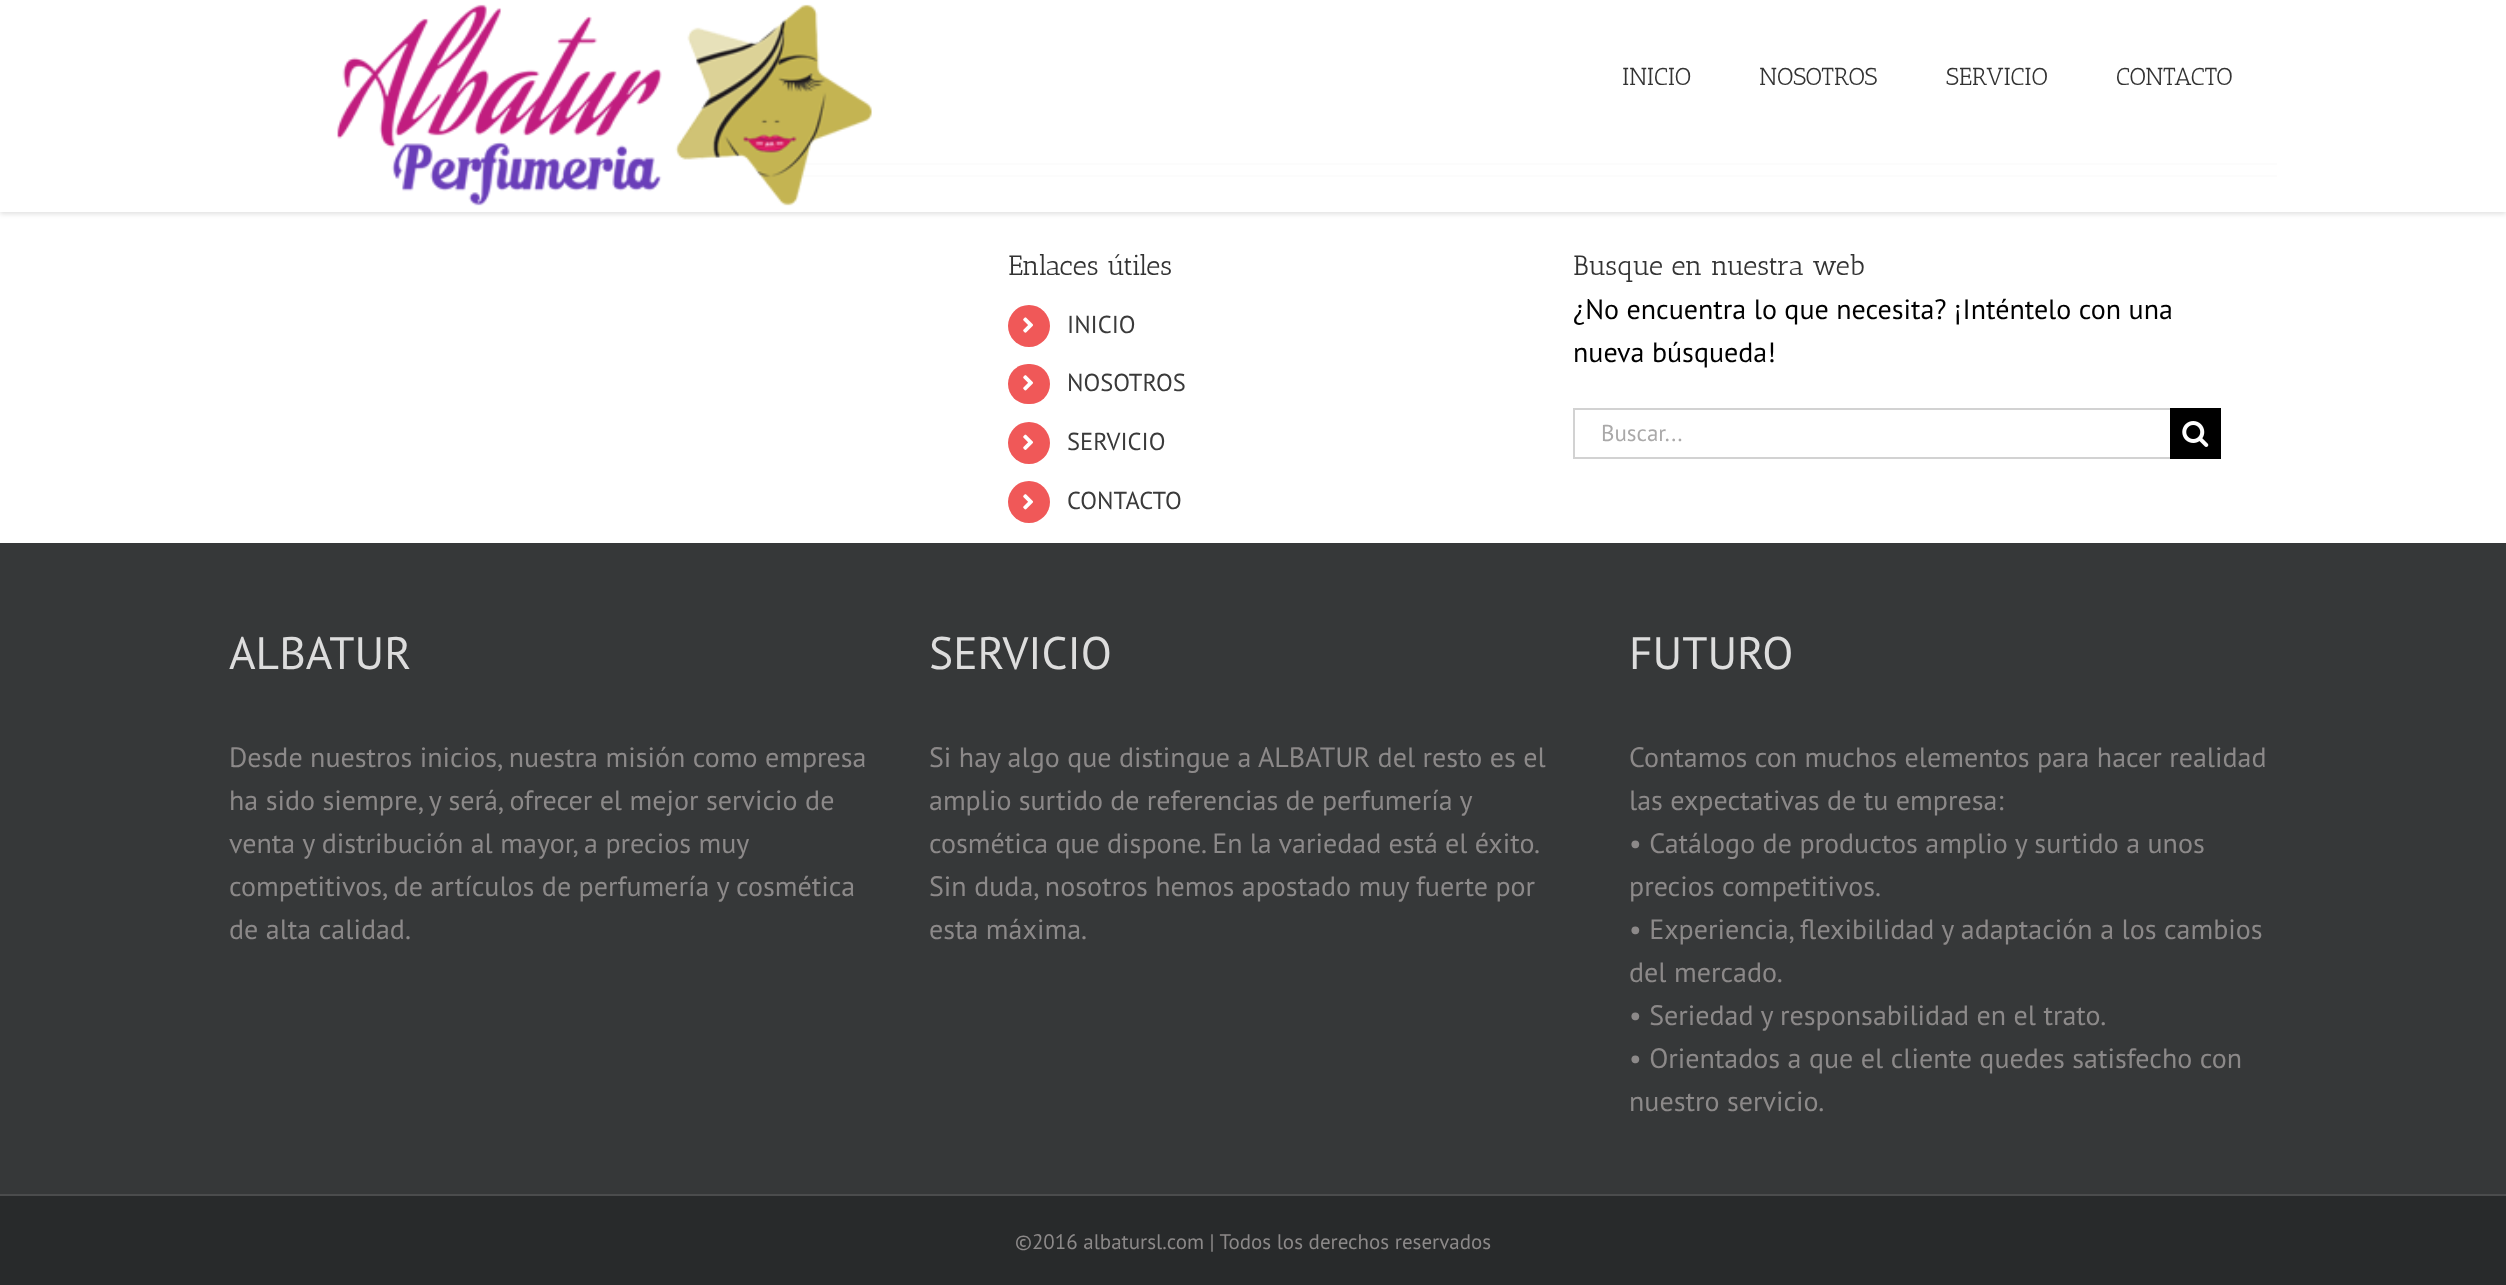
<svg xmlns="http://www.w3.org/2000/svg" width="2506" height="1285">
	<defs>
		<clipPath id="clip1"><path d="M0 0H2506V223H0ZM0 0H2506V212H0Z" clip-rule="evenodd" /></clipPath>
	</defs>
	<rect width="100%" height="100%" fill="#FFFFFF" />
	<rect x="798" y="163" width="1479" height="2" fill="#E0DEDE" />
	<rect x="798" y="175" width="1479" height="2" fill="#E0DEDE" />
	<g clip-path="url(#clip1)">
		<rect x="0" y="2" width="2506" height="212" fill="#000000" fill-opacity="0.12" filter="blur(2.5px)" />
	</g>
	<rect x="0" y="163" width="2506" height="49" fill="#FFFFFF" fill-opacity="0.9" />
	<image x="337" y="4" width="535" height="202" href="assets/img1.png" />
	<g font-family="Antic Slab" font-size="24.5" fill="#333333">
		<text x="1622" y="85">INICIO</text>
		<text x="1759" y="85">NOSOTROS</text>
		<text x="1946" y="85">SERVICIO</text>
		<text x="2116" y="85">CONTACTO</text>
	</g>
	<text x="1008" y="275" font-family="Antic Slab" font-size="28" fill="#333333">Enlaces útiles</text>
	<circle cx="1029" cy="326" r="21" fill="#F05858" />
	<image x="1023" y="317" width="10" height="16" href="assets/img2.png" />
	<text x="1067" y="333" font-family="PT Sans" font-size="24.5" fill="#3A3A3A">INICIO</text>
	<rect x="1008" y="364" width="42" height="40" rx="20" fill="#F05858" />
	<image x="1023" y="375" width="10" height="16" href="assets/img3.png" />
	<text x="1067" y="391" font-family="PT Sans" font-size="24.5" fill="#3A3A3A">NOSOTROS</text>
	<circle cx="1029" cy="443" r="21" fill="#F05858" />
	<image x="1023" y="434" width="10" height="16" href="assets/img4.png" />
	<text x="1067" y="450" font-family="PT Sans" font-size="24.5" fill="#3A3A3A">SERVICIO</text>
	<circle cx="1029" cy="502" r="21" fill="#F05858" />
	<image x="1023" y="494" width="10" height="16" href="assets/img3.png" />
	<text x="1067" y="509" font-family="PT Sans" font-size="24.5" fill="#3A3A3A">CONTACTO</text>
	<text x="1573" y="275" font-family="Antic Slab" font-size="28" fill="#333333">Busque en nuestra web</text>
	<g font-family="PT Sans" font-size="28" fill="#000000">
		<text x="1573" y="319">¿No encuentra lo que necesita? ¡Inténtelo con una</text>
		<text x="1573" y="362">nueva búsqueda!</text>
	</g>
	<rect x="1573" y="408" width="597" height="2" fill="#D2D2D2" />
	<rect x="1573" y="457" width="597" height="2" fill="#D2D2D2" />
	<rect x="1573" y="408" width="2" height="51" fill="#D2D2D2" />
	<text x="1601" y="441" font-family="PT Sans" font-size="23" fill="#AAA9A9">Buscar...</text>
	<rect x="2170" y="408" width="51" height="51" fill="#000000" />
	<image x="2182" y="421" width="27" height="26" href="assets/img5.png" />
	<rect x="0" y="543" width="2506" height="651" fill="#363839" />
	<text x="229" y="669" font-family="PT Sans" font-size="45.5" fill="#DDDDDD">ALBATUR</text>
	<g font-family="PT Sans" font-size="28" fill="#8C8989">
		<text x="229" y="767">Desde nuestros inicios, nuestra misión como empresa</text>
		<text x="229" y="810">ha sido siempre, y será, ofrecer el mejor servicio de</text>
		<text x="229" y="853">venta y distribución al mayor, a precios muy</text>
		<text x="229" y="896">competitivos, de artículos de perfumería y cosmética</text>
		<text x="229" y="939">de alta calidad.</text>
	</g>
	<text x="929" y="669" font-family="PT Sans" font-size="45.5" fill="#DDDDDD">SERVICIO</text>
	<g font-family="PT Sans" font-size="28" fill="#8C8989">
		<text x="929" y="767">Si hay algo que distingue a ALBATUR del resto es el</text>
		<text x="929" y="810" word-spacing="-0.25">amplio surtido de referencias de perfumería y</text>
		<text x="929" y="853" word-spacing="-0.25">cosmética que dispone. En la variedad está el éxito.</text>
		<text x="929" y="896">Sin duda, nosotros hemos apostado muy fuerte por</text>
		<text x="929" y="939">esta máxima.</text>
	</g>
	<text x="1629" y="669" font-family="PT Sans" font-size="45.5" fill="#DDDDDD">FUTURO</text>
	<g font-family="PT Sans" font-size="28" fill="#8C8989">
		<text x="1629" y="767">Contamos con muchos elementos para hacer realidad</text>
		<text x="1629" y="810">las expectativas de tu empresa:</text>
		<text x="1629" y="853">• Catálogo de productos amplio y surtido a unos</text>
		<text x="1629" y="896">precios competitivos.</text>
		<text x="1629" y="939">• Experiencia, flexibilidad y adaptación a los cambios</text>
		<text x="1629" y="982">del mercado.</text>
		<text x="1629" y="1025">• Seriedad y responsabilidad en el trato.</text>
		<text x="1629" y="1068">• Orientados a que el cliente quedes satisfecho con</text>
		<text x="1629" y="1111">nuestro servicio.</text>
	</g>
	<rect x="0" y="1196" width="2506" height="89" fill="#282A2B" />
	<rect x="0" y="1194" width="2506" height="2" fill="#4B4C4D" />
	<text x="1015" y="1249" font-family="PT Sans" font-size="21" fill="#8C8989">©2016 albatursl.com | Todos los derechos reservados</text>
</svg>
